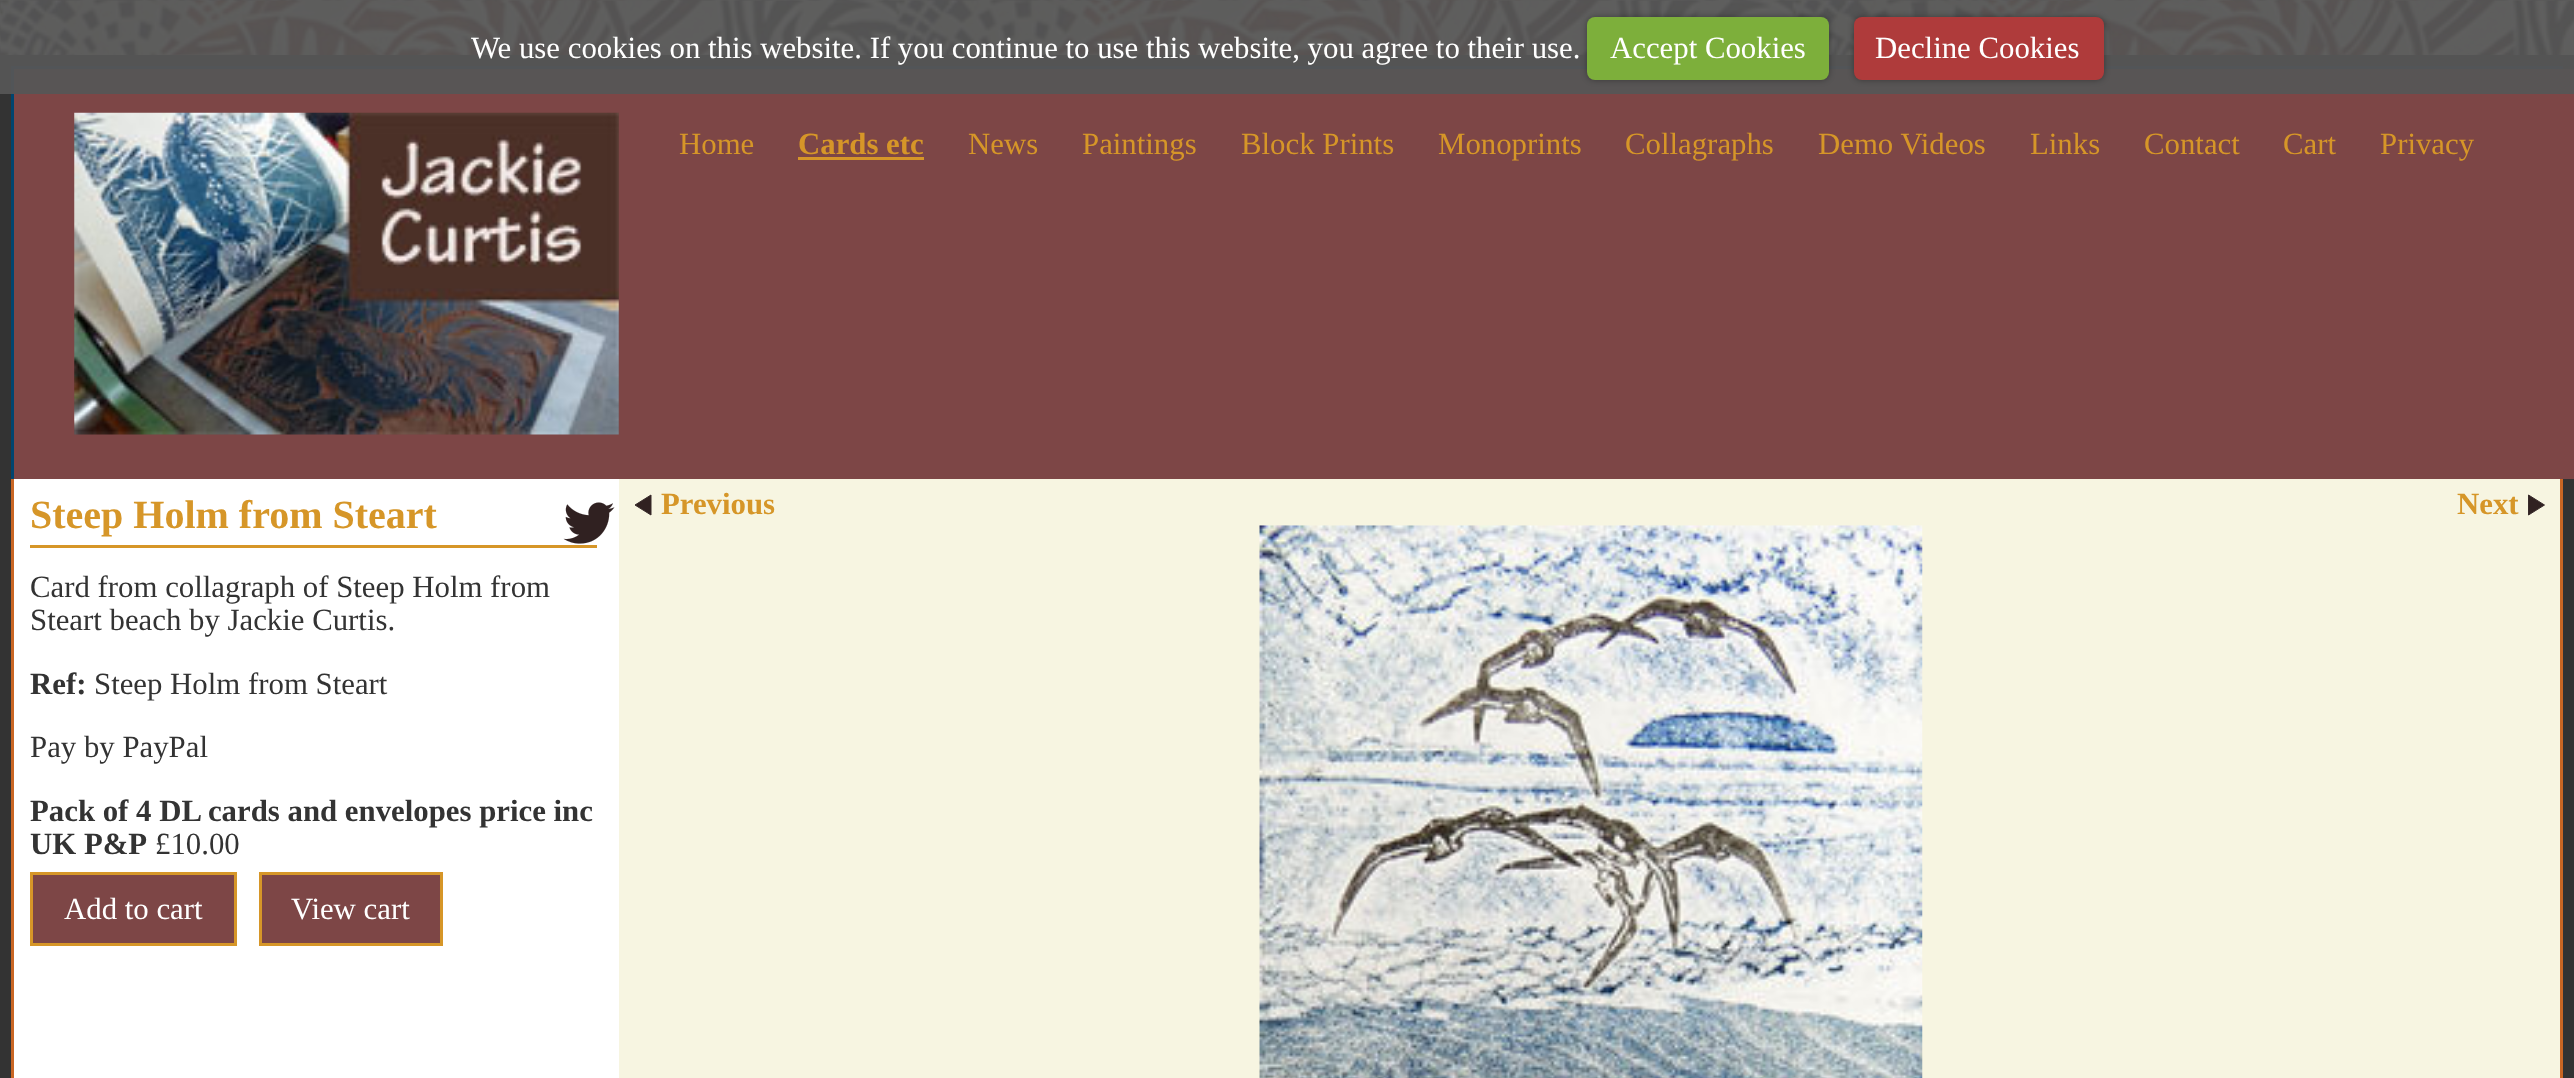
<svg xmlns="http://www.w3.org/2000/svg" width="2574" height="1078">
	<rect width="100%" height="100%" fill="#FFFFFF" />
	<image x="0" y="0" width="2574" height="55" href="assets/img1.png" />
	<rect x="5.5" y="60.5" width="2563" height="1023" fill="none" stroke="#333333" stroke-width="11" />
	<rect x="11" y="66" width="2552" height="3" fill="#00456F" />
	<rect x="11" y="66" width="3" height="413" fill="#00456F" />
	<rect x="14" y="69" width="2560" height="410" fill="#7D4646" />
	<rect x="0" y="0" width="2574" height="94" fill="#565656" fill-opacity="0.95" />
	<text x="471" y="58" font-family="Liberation Serif" font-size="30.8" fill="#FFFFFF">We use cookies on this website. If you continue to use this website, you agree to their use.</text>
	<rect x="1587" y="17" width="242" height="63" rx="8" fill="#000000" fill-opacity="0.35" filter="blur(3px)" />
	<rect x="1587" y="17" width="242" height="63" rx="8" fill="#7DAF3B" />
	<text x="1610" y="58" font-family="Liberation Serif" font-size="30.8" fill="#FFFFFF">Accept Cookies</text>
	<rect x="1854" y="17" width="250" height="63" rx="8" fill="#000000" fill-opacity="0.35" filter="blur(3px)" />
	<rect x="1854" y="17" width="250" height="63" rx="8" fill="#AF3B3B" />
	<text x="1875" y="58" font-family="Liberation Serif" font-size="30.8" fill="#FFFFFF">Decline Cookies</text>
	<image x="74" y="112" width="545" height="323" href="assets/img2.png" />
	<text x="679" y="154" font-family="Liberation Serif" font-size="30.8" fill="#D69628">Home</text>
	<text x="798" y="154" font-family="Liberation Serif" font-size="30.8" font-weight="700" fill="#D69628">Cards etc</text>
	<rect x="798" y="157" width="126" height="3" fill="#D69628" />
	<g font-family="Liberation Serif" font-size="30.8" fill="#D69628">
		<text x="968" y="154">News</text>
		<text x="1082" y="154">Paintings</text>
		<text x="1241" y="154">Block Prints</text>
		<text x="1438" y="154">Monoprints</text>
		<text x="1625" y="154">Collagraphs</text>
		<text x="1818" y="154">Demo Videos</text>
		<text x="2030" y="154">Links</text>
		<text x="2144" y="154">Contact</text>
		<text x="2283" y="154">Cart</text>
		<text x="2380" y="154">Privacy</text>
	</g>
	<rect x="619" y="479" width="1941" height="599" fill="#F7F5E1" />
	<rect x="2560" y="479" width="3" height="599" fill="#C96624" />
	<rect x="11" y="479" width="3" height="599" fill="#C96624" />
	<rect x="30" y="545" width="567" height="3" fill="#D69628" />
	<text x="30" y="528" font-family="Liberation Serif" font-size="40" font-weight="700" fill="#D69628">Steep Holm from Steart</text>
	<image x="563" y="502" width="52" height="42" href="assets/img3.png" />
	<g font-family="Liberation Serif" font-size="30.8" fill="#333333">
		<text x="30" y="597">Card from collagraph of Steep Holm from</text>
		<text x="30" y="630">Steart beach by Jackie Curtis.</text>
	</g>
	<text x="30" y="694" font-family="Liberation Serif" font-size="30.8" font-weight="700" fill="#333333">Ref:</text>
	<g font-family="Liberation Serif" font-size="30.8" fill="#333333">
		<text x="94" y="694">Steep Holm from Steart</text>
		<text x="30" y="757">Pay by PayPal</text>
	</g>
	<g font-family="Liberation Serif" font-size="30.8" font-weight="700" fill="#333333">
		<text x="30" y="821">Pack of 4 DL cards and envelopes price inc</text>
		<text x="30" y="854">UK P&amp;P</text>
	</g>
	<text x="155" y="854" font-family="Liberation Serif" font-size="30.8" fill="#333333">£10.00</text>
	<rect x="31.5" y="873.5" width="204" height="71" fill="#7D4646" stroke="#D69628" stroke-width="3" />
	<text x="64" y="919" font-family="Liberation Serif" font-size="30.8" fill="#FFFFFF">Add to cart</text>
	<rect x="260.5" y="873.5" width="181" height="71" fill="#7D4646" stroke="#D69628" stroke-width="3" />
	<text x="291" y="919" font-family="Liberation Serif" font-size="30.8" fill="#FFFFFF">View cart</text>
	<path d="M651 495V515L635 505Z" fill="#302121" stroke="#382B2B" />
	<g font-family="Liberation Serif" font-size="30.8" font-weight="700" fill="#D69628">
		<text x="661" y="514">Previous</text>
		<text x="2457" y="514">Next</text>
	</g>
	<path d="M2528.5 495V515L2544.5 505Z" fill="#302121" stroke="#382B2B" />
	<image x="1259" y="525" width="664" height="553" href="assets/img4.png" />
</svg>
